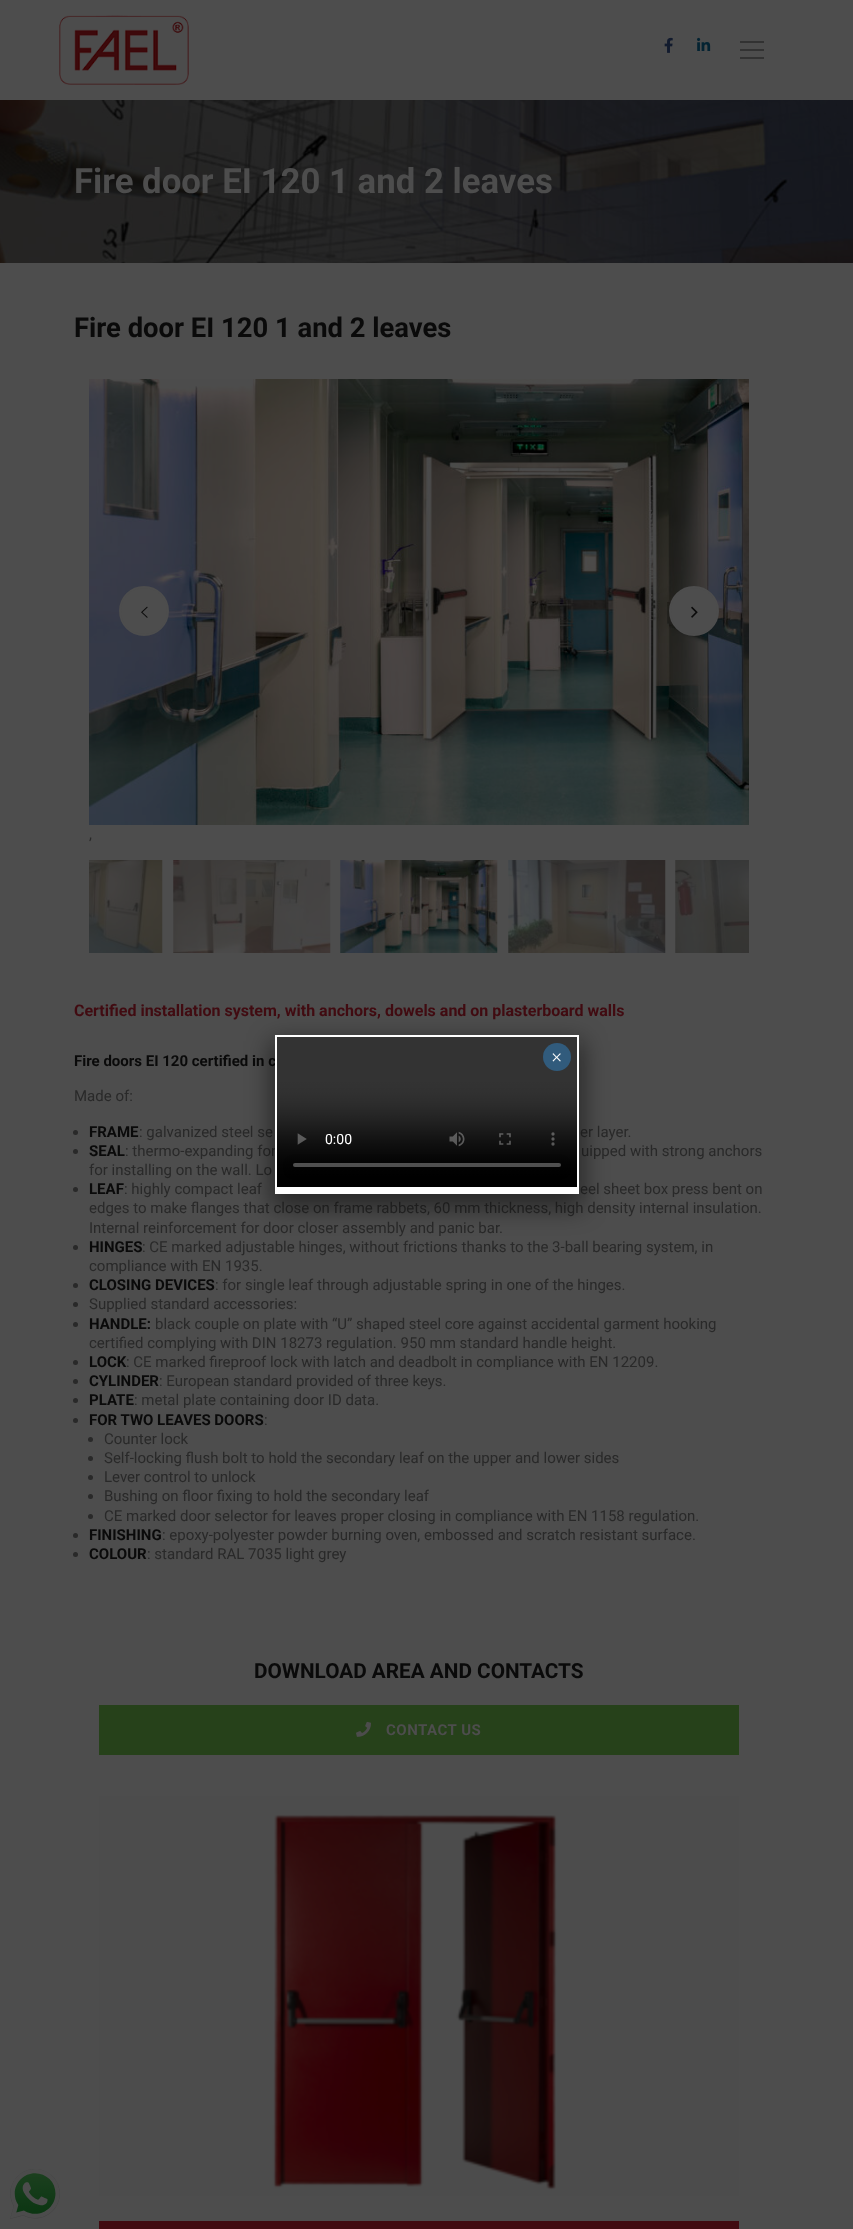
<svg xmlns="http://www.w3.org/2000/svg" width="853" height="2229">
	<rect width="100%" height="100%" fill="#4D4D4D" />
	<image x="59" y="15" width="130" height="70" href="assets/img1.png" />
	<image x="664" y="37" width="9" height="16" href="assets/img2.png" />
	<image x="697" y="37" width="14" height="14" href="assets/img3.png" />
	<rect x="740" y="49" width="24" height="2" fill="#323232" />
	<rect x="740" y="41" width="24" height="2" fill="#323232" />
	<rect x="740" y="57" width="24" height="2" fill="#323232" />
	<image x="0" y="100" width="853" height="163" href="assets/img4.png" />
	<text x="74" y="193" font-family="Roboto" font-size="34.75" font-weight="700" fill="#4D4D4D">Fire door EI 120 1 and 2 leaves</text>
	<text x="74" y="337" font-family="Roboto" font-size="27.4" font-weight="700" fill="#0A0A0A">Fire door EI 120 1 and 2 leaves</text>
	<image x="89" y="379" width="660" height="446" href="assets/img7.png" />
	<circle cx="144" cy="611" r="24" fill="#4D4D4D" stroke="#4D4D4D" stroke-width="2" />
	<image x="141" y="606" width="7" height="12" href="assets/img5.png" />
	<circle cx="694" cy="611" r="24" fill="#4D4D4D" stroke="#4D4D4D" stroke-width="2" />
	<image x="691" y="606" width="7" height="12" href="assets/img6.png" />
	<text x="89" y="839" font-family="Roboto" font-size="15" fill="#292929">,</text>
	<image x="89" y="860" width="74" height="93" href="assets/img8.png" />
	<image x="173" y="860" width="158" height="93" href="assets/img9.png" />
	<image x="340" y="860" width="158" height="93" href="assets/img10.png" />
	<image x="508" y="860" width="158" height="93" href="assets/img11.png" />
	<image x="675" y="860" width="74" height="93" href="assets/img12.png" />
	<text x="74" y="1016" font-family="Roboto" font-size="16" font-weight="700" fill="#410B11">Certified installation system, with anchors, dowels and on plasterboard walls</text>
	<text x="74" y="1066" font-family="Roboto" font-size="15" font-weight="700" fill="#0A0A0A">Fire doors EI 120 certified in c</text>
	<text x="74" y="1101" font-family="Roboto" font-size="15" fill="#292929">Made of:</text>
	<circle cx="75.5" cy="1132.5" r="2.5" fill="#292929" />
	<text x="89" y="1137" font-family="Roboto" font-size="15" font-weight="700" fill="#0A0A0A">FRAME</text>
	<g font-family="Roboto" font-size="15" fill="#292929">
		<text x="139" y="1137">: galvanized steel se</text>
		<text x="580" y="1137">er layer.</text>
	</g>
	<circle cx="75.5" cy="1151.5" r="2.5" fill="#292929" />
	<text x="89" y="1156" font-family="Roboto" font-size="15" font-weight="700" fill="#0A0A0A">SEAL</text>
	<g font-family="Roboto" font-size="15" fill="#292929">
		<text x="125" y="1156">: thermo-expanding for</text>
		<text x="581" y="1156">uipped with strong anchors</text>
		<text x="89" y="1175">for installing on the wall. Lo</text>
	</g>
	<circle cx="75.5" cy="1189.5" r="2.5" fill="#292929" />
	<text x="89" y="1194" font-family="Roboto" font-size="15" font-weight="700" fill="#0A0A0A">LEAF</text>
	<g font-family="Roboto" font-size="15" fill="#292929">
		<text x="124" y="1194">: highly compact leaf</text>
		<text x="580" y="1194">eel sheet box press bent on</text>
		<text x="89" y="1213">edges to make flanges that close on frame rabbets, 60 mm thickness, high density internal insulation.</text>
		<text x="89" y="1233">Internal reinforcement for door closer assembly and panic bar.</text>
	</g>
	<circle cx="75.5" cy="1247.5" r="2.5" fill="#292929" />
	<text x="89" y="1252" font-family="Roboto" font-size="15" font-weight="700" fill="#0A0A0A">HINGES</text>
	<g font-family="Roboto" font-size="15" fill="#292929">
		<text x="142" y="1252">: CE marked adjustable hinges, without frictions thanks to the 3-ball bearing system, in</text>
		<text x="89" y="1271">compliance with EN 1935.</text>
	</g>
	<circle cx="75.5" cy="1285.5" r="2.5" fill="#292929" />
	<text x="89" y="1290" font-family="Roboto" font-size="15" font-weight="700" fill="#0A0A0A">CLOSING DEVICES</text>
	<text x="215" y="1290" font-family="Roboto" font-size="15" fill="#292929">: for single leaf through adjustable spring in one of the hinges.</text>
	<circle cx="75.5" cy="1304.5" r="2.5" fill="#292929" />
	<text x="89" y="1309" font-family="Roboto" font-size="15" fill="#292929">Supplied standard accessories:</text>
	<circle cx="75.5" cy="1324.5" r="2.5" fill="#292929" />
	<text x="89" y="1329" font-family="Roboto" font-size="15" font-weight="700" fill="#0A0A0A">HANDLE:</text>
	<g font-family="Roboto" font-size="15" fill="#292929">
		<text x="155" y="1329">black couple on plate with “U” shaped steel core against accidental garment hooking</text>
		<text x="89" y="1348">certified complying with DIN 18273 regulation. 950 mm standard handle height.</text>
	</g>
	<circle cx="75.5" cy="1362.5" r="2.5" fill="#292929" />
	<text x="89" y="1367" font-family="Roboto" font-size="15" font-weight="700" fill="#0A0A0A">LOCK</text>
	<text x="126" y="1367" font-family="Roboto" font-size="15" fill="#292929">: CE marked fireproof lock with latch and deadbolt in compliance with EN 12209.</text>
	<circle cx="75.5" cy="1381.5" r="2.5" fill="#292929" />
	<text x="89" y="1386" font-family="Roboto" font-size="15" font-weight="700" fill="#0A0A0A">CYLINDER</text>
	<text x="159" y="1386" font-family="Roboto" font-size="15" fill="#292929">: European standard provided of three keys.</text>
	<circle cx="75.5" cy="1400.5" r="2.5" fill="#292929" />
	<text x="89" y="1405" font-family="Roboto" font-size="15" font-weight="700" fill="#0A0A0A">PLATE</text>
	<text x="134" y="1405" font-family="Roboto" font-size="15" fill="#292929">: metal plate containing door ID data.</text>
	<circle cx="75.5" cy="1420.5" r="2.5" fill="#292929" />
	<text x="89" y="1425" font-family="Roboto" font-size="15" font-weight="700" fill="#0A0A0A">FOR TWO LEAVES DOORS</text>
	<text x="264" y="1425" font-family="Roboto" font-size="15" fill="#292929">:</text>
	<circle cx="90.5" cy="1439.5" r="2.5" fill="#292929" />
	<text x="104" y="1444" font-family="Roboto" font-size="15" fill="#292929">Counter lock</text>
	<circle cx="90.5" cy="1458.5" r="2.5" fill="#292929" />
	<text x="104" y="1463" font-family="Roboto" font-size="15" fill="#292929">Self-locking flush bolt to hold the secondary leaf on the upper and lower sides</text>
	<circle cx="90.5" cy="1477.5" r="2.5" fill="#292929" />
	<text x="104" y="1482" font-family="Roboto" font-size="15" fill="#292929">Lever control to unlock</text>
	<circle cx="90.5" cy="1496.5" r="2.5" fill="#292929" />
	<text x="104" y="1501" font-family="Roboto" font-size="15" fill="#292929">Bushing on floor fixing to hold the secondary leaf</text>
	<circle cx="90.5" cy="1516.5" r="2.5" fill="#292929" />
	<text x="104" y="1521" font-family="Roboto" font-size="15" fill="#292929">CE marked door selector for leaves proper closing in compliance with EN 1158 regulation.</text>
	<circle cx="75.5" cy="1535.5" r="2.5" fill="#292929" />
	<text x="89" y="1540" font-family="Roboto" font-size="15" font-weight="700" fill="#0A0A0A">FINISHING</text>
	<text x="162" y="1540" font-family="Roboto" font-size="15" fill="#292929">: epoxy-polyester powder burning oven, embossed and scratch resistant surface.</text>
	<circle cx="75.5" cy="1554.5" r="2.5" fill="#292929" />
	<text x="89" y="1559" font-family="Roboto" font-size="15" font-weight="700" fill="#0A0A0A">COLOUR</text>
	<text x="147" y="1559" font-family="Roboto" font-size="15" fill="#292929">: standard RAL 7035 light grey</text>
	<text x="254" y="1678" font-family="Roboto" font-size="20.75" font-weight="700" fill="#0A0A0A">DOWNLOAD AREA AND CONTACTS</text>
	<rect x="99" y="1705" width="640" height="50" fill="#26411A" />
	<image x="356" y="1721" width="15" height="16" href="assets/img13.png" />
	<text x="386" y="1735" font-family="Roboto" font-size="15" font-weight="700" letter-spacing="0.5" fill="#4D4D4D">CONTACT US</text>
	<image x="99" y="1796" width="640" height="400" href="assets/img14.png" />
	<rect x="99" y="2221" width="640" height="8" fill="#410B11" />
	<rect x="271" y="1041" width="312" height="167" fill="#020202" fill-opacity="0.5" filter="blur(12.5px)" />
	<rect x="275" y="1035" width="304" height="159" fill="#FFFFFF" />
	<image x="277" y="1037" width="300" height="150" href="assets/img15.png" />
	<circle cx="557" cy="1057" r="14" fill="#315B7C" />
	<text x="551" y="1064" font-family="Liberation Serif" font-size="20" fill="#FFFFFF">×</text>
	<image x="10" y="2169" width="50" height="50" href="assets/img16.png" />
</svg>
